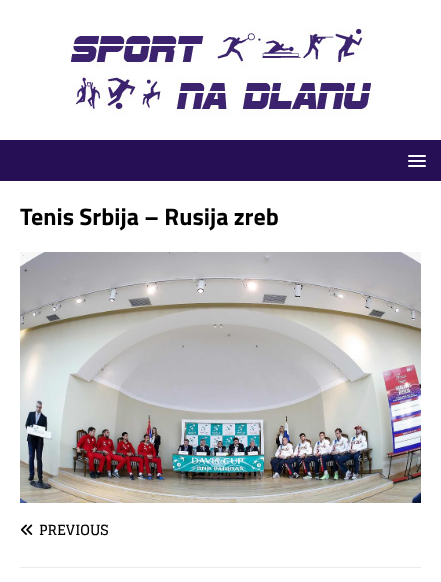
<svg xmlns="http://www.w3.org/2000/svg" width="441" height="582">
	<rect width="100%" height="100%" fill="#FFFFFF" />
	<image x="71" y="28" width="300" height="88" href="assets/img1.png" />
	<rect x="0" y="140" width="441" height="41" fill="#260F54" />
	<rect x="408" y="155" width="18" height="2" rx="1" fill="#FFFFFF" />
	<rect x="408" y="160" width="18" height="2" rx="1" fill="#FFFFFF" />
	<rect x="408" y="165" width="18" height="2" rx="1" fill="#FFFFFF" />
	<text x="20" y="225" font-family="Titillium Web" font-size="24" font-weight="700" fill="#000000">Tenis Srbija – Rusija zreb</text>
	<image x="20" y="252" width="401" height="251" href="assets/img2.png" />
	<rect x="20" y="567" width="401" height="1" fill="#EBEBEB" />
	<image x="20" y="524" width="13" height="11" href="assets/img3.png" />
	<text x="39" y="535" font-family="Glegoo" font-size="14" font-weight="700" fill="#000000">PREVIOUS</text>
</svg>
